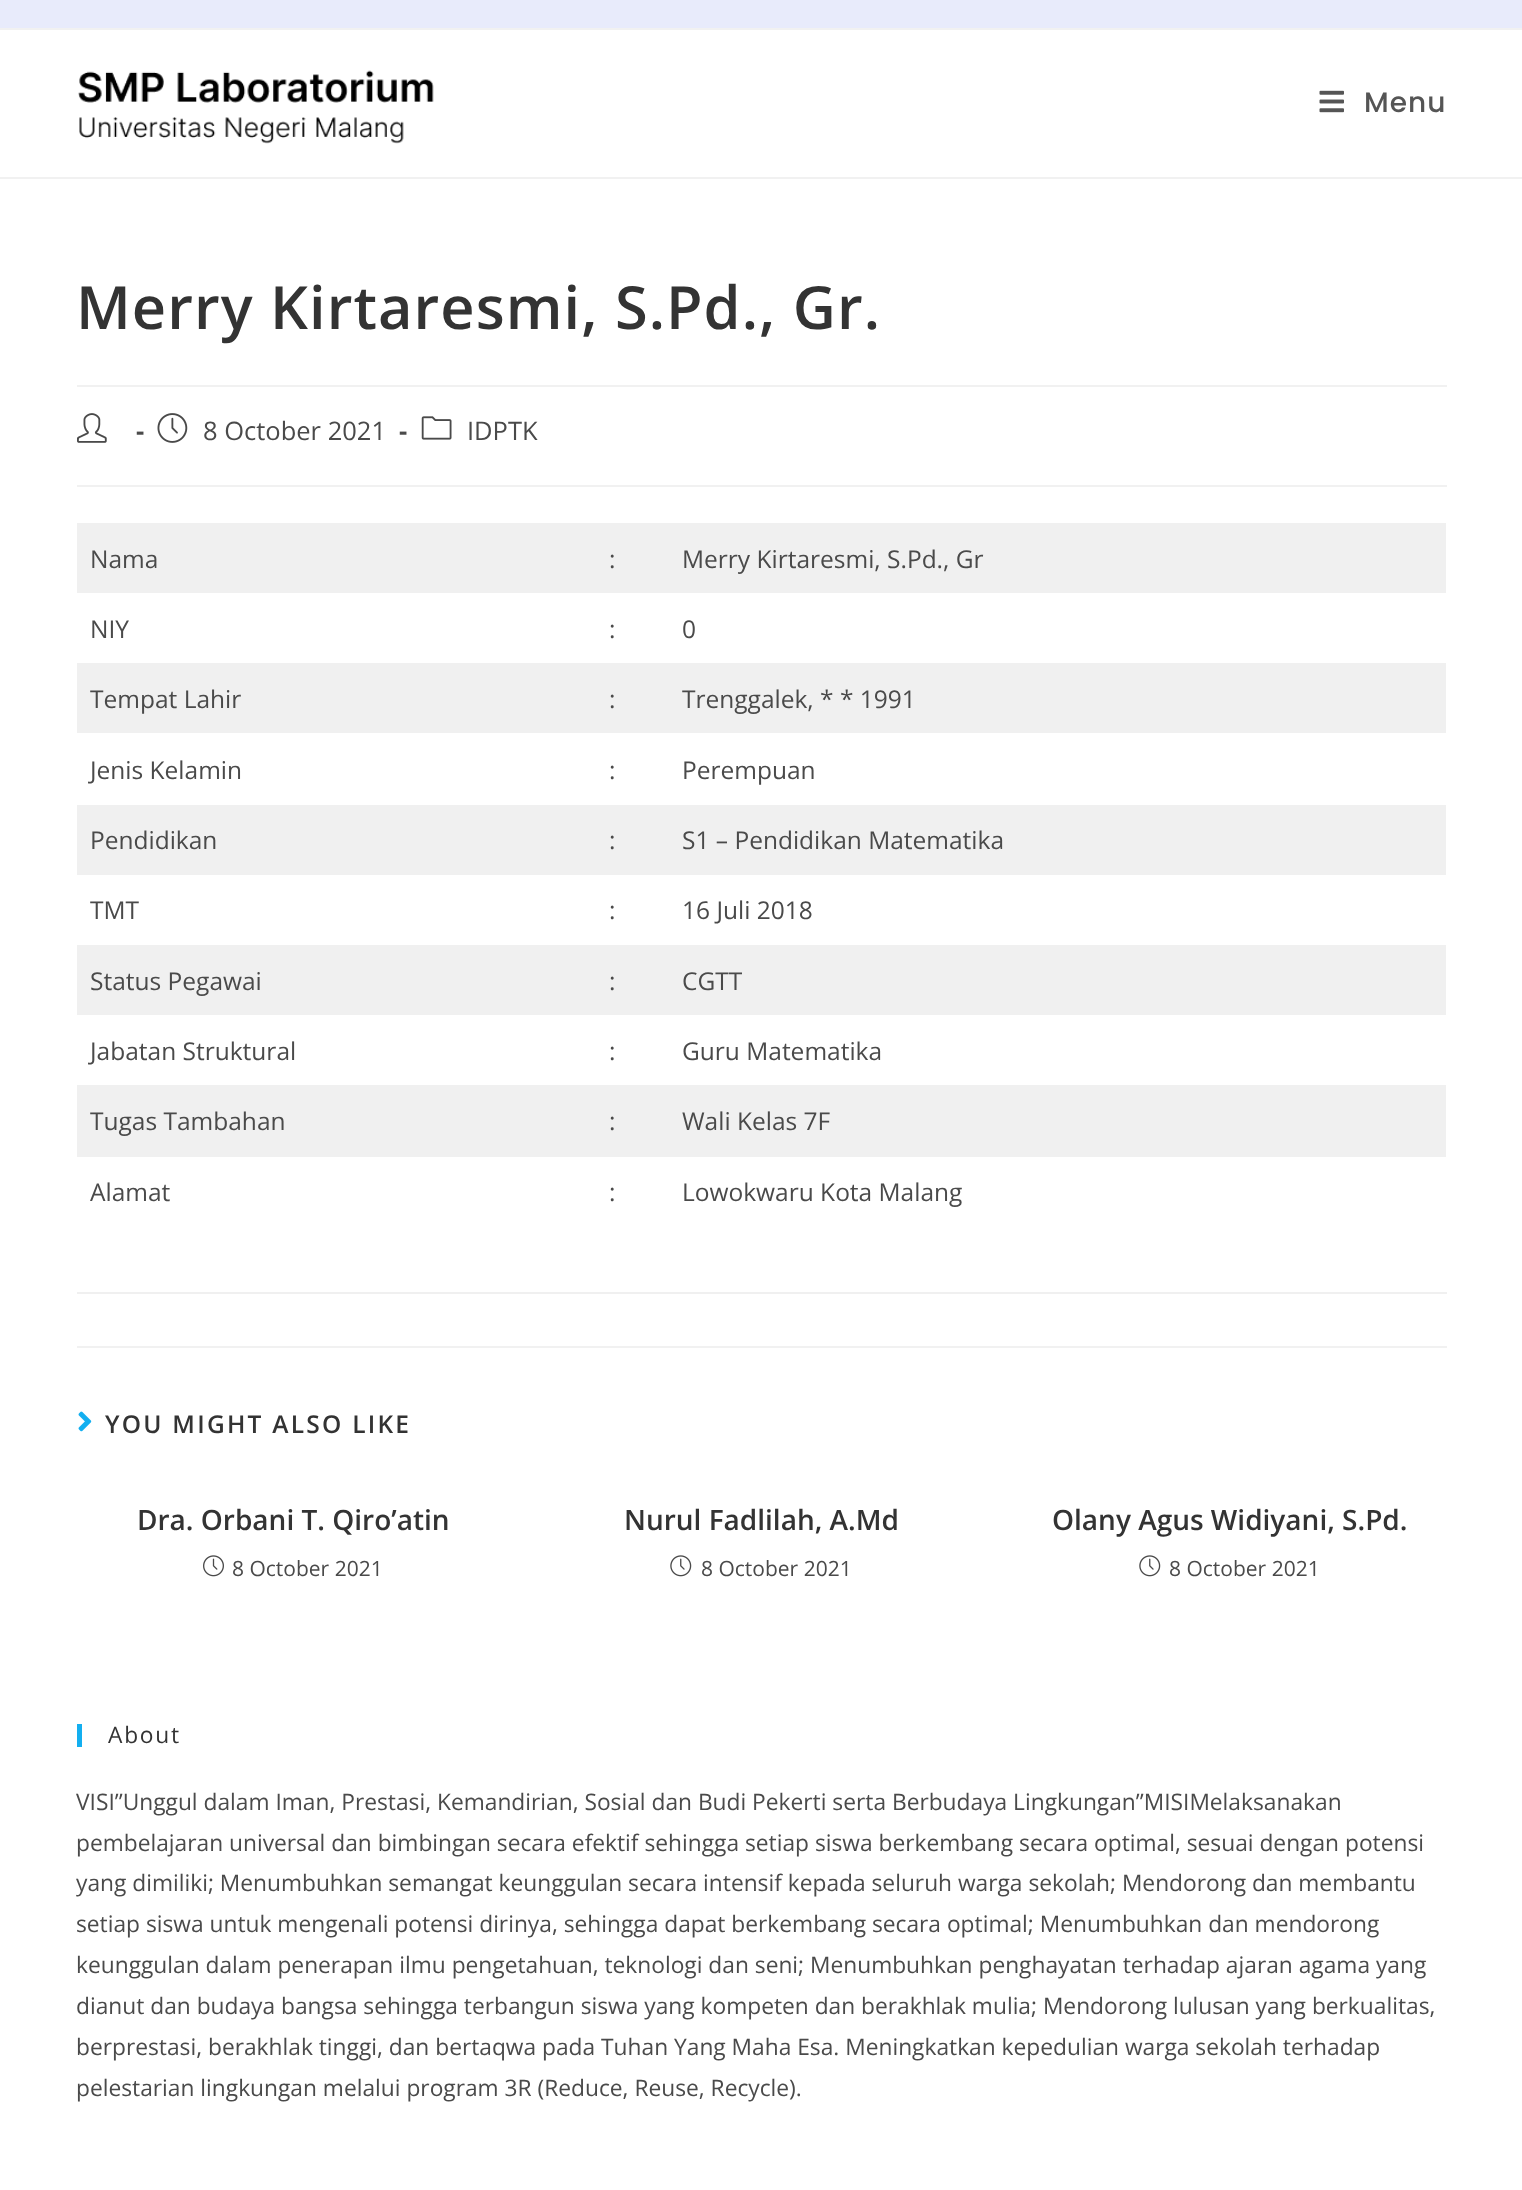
<svg xmlns="http://www.w3.org/2000/svg" width="1522" height="2190">
	<rect width="100%" height="100%" fill="#FFFFFF" />
	<rect x="0" y="0" width="1522" height="28" fill="#E8EBFB" />
	<rect x="0" y="28" width="1522" height="2" fill="#F1F1F1" />
	<rect x="0" y="177" width="1522" height="2" fill="#F1F1F1" />
	<image x="78" y="70" width="356" height="74" href="assets/img1.png" />
	<image x="1319" y="90" width="25" height="23" href="assets/img2.png" />
	<text x="1364" y="112" font-family="Poppins" font-size="28" font-weight="500" letter-spacing="1.05" fill="#555555">Menu</text>
	<rect x="77" y="385" width="1370" height="2" fill="#F1F1F1" />
	<text x="76" y="329" font-family="Open Sans" font-size="59.5" font-weight="600" letter-spacing="1.05" fill="#333333">Merry Kirtaresmi, S.Pd., Gr.</text>
	<rect x="77" y="485" width="1370" height="2" fill="#F1F1F1" />
	<image x="77" y="413" width="30" height="30" href="assets/img3.png" />
	<text x="136" y="440" font-family="Open Sans" font-size="25.5" font-weight="700" fill="#4A4A4A">-</text>
	<image x="157" y="413" width="31" height="30" href="assets/img4.png" />
	<text x="203" y="440" font-family="Open Sans" font-size="25.5" fill="#4A4A4A">8 October 2021</text>
	<text x="399" y="440" font-family="Open Sans" font-size="25.5" font-weight="700" fill="#4A4A4A">-</text>
	<image x="421" y="416" width="31" height="24" href="assets/img5.png" />
	<text x="467" y="440" font-family="Open Sans" font-size="25.5" fill="#4A4A4A">IDPTK</text>
	<rect x="77" y="1292" width="1370" height="2" fill="#F0F0F0" />
	<rect x="77" y="523" width="1369" height="70" fill="#F0F0F0" />
	<g font-family="Open Sans" font-size="24.5" fill="#4A4A4A">
		<text x="90" y="568">Nama</text>
		<text x="609" y="568">:</text>
		<text x="682" y="568">Merry Kirtaresmi, S.Pd., Gr</text>
		<text x="90" y="638">NIY</text>
		<text x="609" y="638">:</text>
		<text x="682" y="638">0</text>
	</g>
	<rect x="77" y="663" width="1369" height="70" fill="#F0F0F0" />
	<g font-family="Open Sans" font-size="24.5" fill="#4A4A4A">
		<text x="90" y="708">Tempat Lahir</text>
		<text x="609" y="708">:</text>
		<text x="682" y="708">Trenggalek, * * 1991</text>
		<text x="90" y="779">Jenis Kelamin</text>
		<text x="609" y="779">:</text>
		<text x="682" y="779">Perempuan</text>
	</g>
	<rect x="77" y="805" width="1369" height="70" fill="#F0F0F0" />
	<g font-family="Open Sans" font-size="24.5" fill="#4A4A4A">
		<text x="90" y="849">Pendidikan</text>
		<text x="609" y="849">:</text>
		<text x="682" y="849">S1 – Pendidikan Matematika</text>
		<text x="90" y="919">TMT</text>
		<text x="609" y="919">:</text>
		<text x="682" y="919">16 Juli 2018</text>
	</g>
	<rect x="77" y="945" width="1369" height="70" fill="#F0F0F0" />
	<g font-family="Open Sans" font-size="24.5" fill="#4A4A4A">
		<text x="90" y="990">Status Pegawai</text>
		<text x="609" y="990">:</text>
		<text x="682" y="990">CGTT</text>
		<text x="90" y="1060">Jabatan Struktural</text>
		<text x="609" y="1060">:</text>
		<text x="682" y="1060">Guru Matematika</text>
	</g>
	<rect x="77" y="1085" width="1369" height="72" fill="#F0F0F0" />
	<g font-family="Open Sans" font-size="24.5" fill="#4A4A4A">
		<text x="90" y="1130">Tugas Tambahan</text>
		<text x="609" y="1130">:</text>
		<text x="682" y="1130">Wali Kelas 7F</text>
		<text x="90" y="1201">Alamat</text>
		<text x="609" y="1201">:</text>
		<text x="682" y="1201">Lowokwaru Kota Malang</text>
	</g>
	<rect x="77" y="1346" width="1370" height="2" fill="#F1F1F1" />
	<image x="78" y="1411" width="14" height="21" href="assets/img6.png" />
	<text x="105" y="1433" font-family="Open Sans" font-size="24.5" font-weight="600" letter-spacing="2.25" fill="#333333">YOU MIGHT ALSO LIKE</text>
	<text x="137" y="1530" font-family="Open Sans" font-size="28" font-weight="600" fill="#333333">Dra. Orbani T. Qiro’atin</text>
	<image x="203" y="1555" width="21" height="22" href="assets/img7.png" />
	<text x="232" y="1576" font-family="Open Sans" font-size="21" fill="#4A4A4A">8 October 2021</text>
	<text x="624" y="1530" font-family="Open Sans" font-size="28" font-weight="600" fill="#333333">Nurul Fadlilah, A.Md</text>
	<image x="670" y="1555" width="22" height="22" href="assets/img8.png" />
	<text x="701" y="1576" font-family="Open Sans" font-size="21" fill="#4A4A4A">8 October 2021</text>
	<text x="1052" y="1530" font-family="Open Sans" font-size="28" font-weight="600" fill="#333333">Olany Agus Widiyani, S.Pd.</text>
	<image x="1139" y="1555" width="22" height="22" href="assets/img8.png" />
	<text x="1169" y="1576" font-family="Open Sans" font-size="21" fill="#4A4A4A">8 October 2021</text>
	<rect x="77" y="1724" width="5" height="23" fill="#13AFF0" />
	<text x="108" y="1743" font-family="Open Sans" font-size="22.75" letter-spacing="1.75" fill="#333333">About</text>
	<g font-family="Open Sans" font-size="22.75" fill="#4A4A4A">
		<text x="76" y="1810">VISI”Unggul dalam Iman, Prestasi, Kemandirian, Sosial dan Budi Pekerti serta Berbudaya Lingkungan”MISIMelaksanakan</text>
		<text x="76" y="1851">pembelajaran universal dan bimbingan secara efektif sehingga setiap siswa berkembang secara optimal, sesuai dengan potensi</text>
		<text x="76" y="1891">yang dimiliki; Menumbuhkan semangat keunggulan secara intensif kepada seluruh warga sekolah; Mendorong dan membantu</text>
		<text x="76" y="1932">setiap siswa untuk mengenali potensi dirinya, sehingga dapat berkembang secara optimal; Menumbuhkan dan mendorong</text>
		<text x="76" y="1973">keunggulan dalam penerapan ilmu pengetahuan, teknologi dan seni; Menumbuhkan penghayatan terhadap ajaran agama yang</text>
		<text x="76" y="2014">dianut dan budaya bangsa sehingga terbangun siswa yang kompeten dan berakhlak mulia; Mendorong lulusan yang berkualitas,</text>
		<text x="76" y="2055">berprestasi, berakhlak tinggi, dan bertaqwa pada Tuhan Yang Maha Esa. Meningkatkan kepedulian warga sekolah terhadap</text>
		<text x="76" y="2096">pelestarian lingkungan melalui program 3R (Reduce, Reuse, Recycle).</text>
	</g>
</svg>
